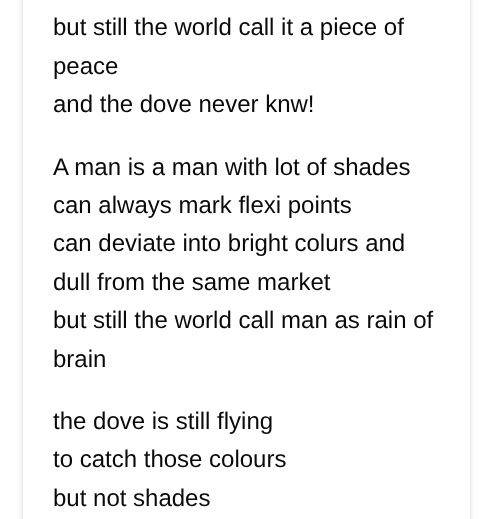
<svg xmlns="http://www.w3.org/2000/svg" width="491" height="519">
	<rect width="100%" height="100%" fill="#FFFFFF" />
	<rect x="23" y="-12" width="447" height="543" fill="#000000" fill-opacity="0.08" filter="blur(4px)" />
	<rect x="23" y="-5" width="447" height="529" fill="#000000" fill-opacity="0.13" filter="blur(1.5px)" />
	<rect x="23" y="0" width="447" height="519" fill="#FFFFFF" />
	<g font-family="Liberation Sans" font-size="24" fill="#0A0A0A">
		<text x="53" y="35">but still the world call it a piece of</text>
		<text x="53" y="74">peace</text>
		<text x="53" y="112">and the dove never knw!</text>
		<text x="53" y="175">A man is a man with lot of shades</text>
		<text x="53" y="213">can always mark flexi points</text>
		<text x="53" y="251">can deviate into bright colurs and</text>
		<text x="53" y="290">dull from the same market</text>
		<text x="53" y="328">but still the world call man as rain of</text>
		<text x="53" y="367">brain</text>
		<text x="53" y="429">the dove is still flying</text>
		<text x="53" y="467">to catch those colours</text>
		<text x="53" y="506">but not shades</text>
	</g>
</svg>
